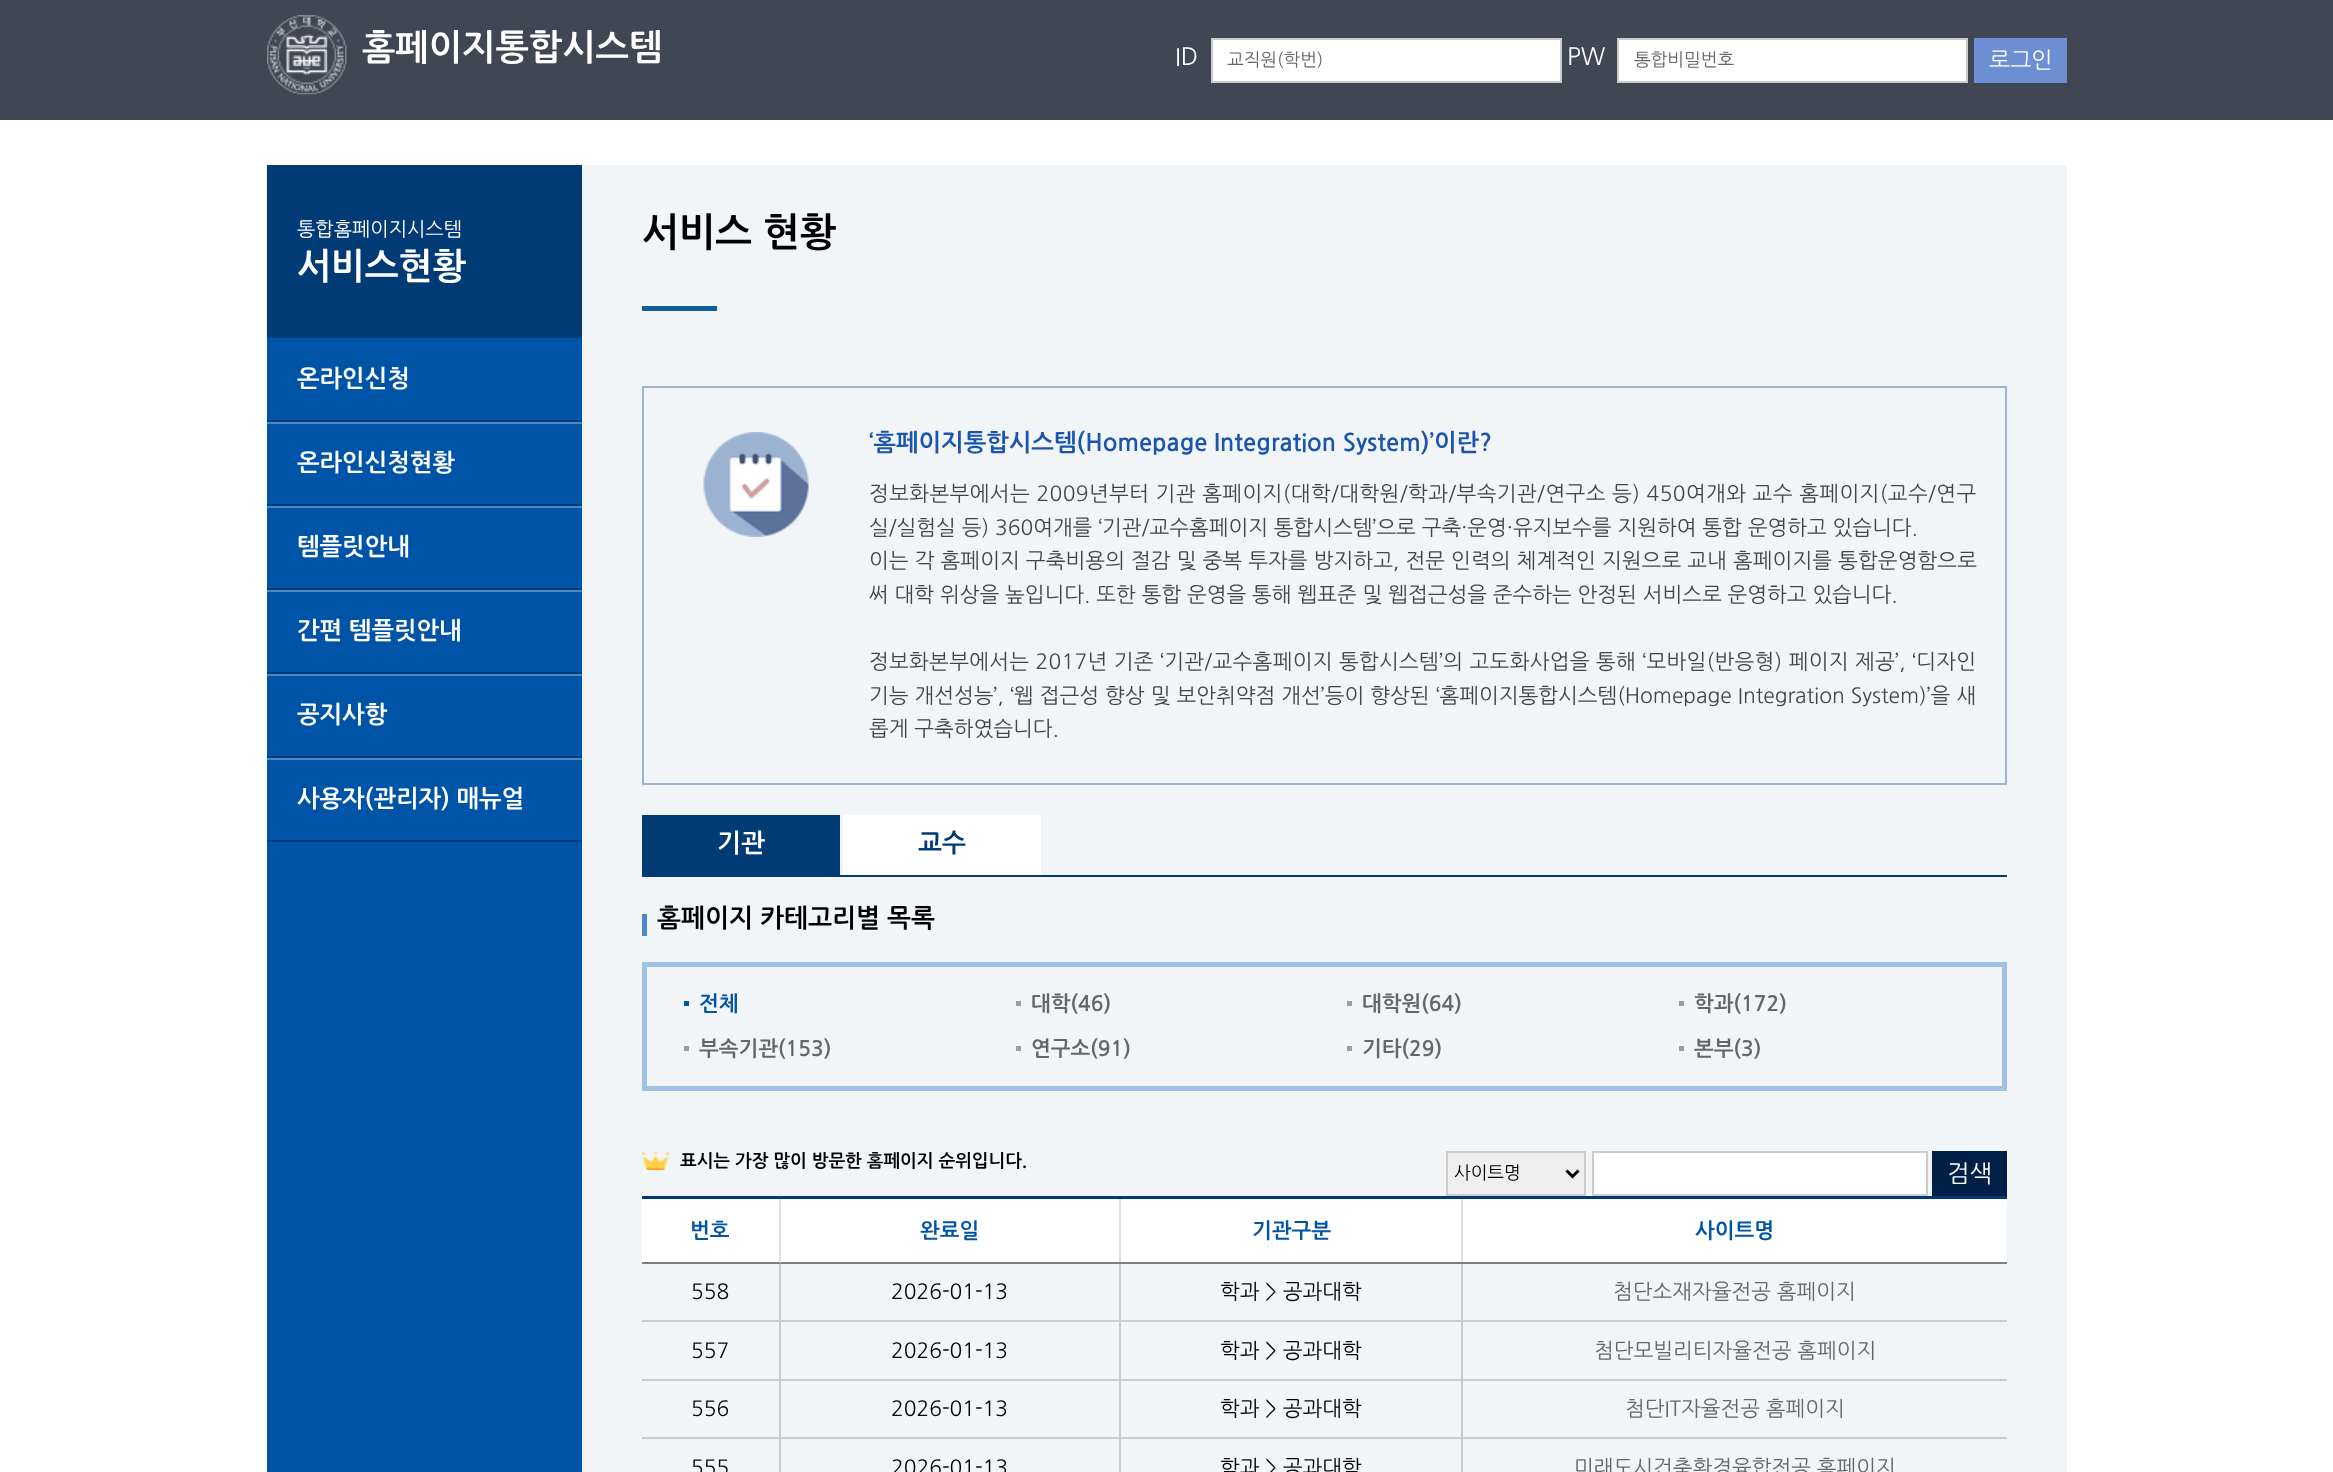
<svg xmlns="http://www.w3.org/2000/svg" width="2333" height="1472">
	<rect width="100%" height="100%" fill="#FFFFFF" />
	<rect x="0" y="0" width="2333" height="120" fill="#404652" />
	<image x="267" y="15" width="80" height="80" href="assets/img1.png" />
	<text x="362" y="60" font-family="NanumGothic" font-size="35.5" font-weight="700" fill="#FFFFFF">홈페이지통합시스템</text>
	<text x="1175" y="65" font-family="NanumGothic" font-size="24" fill="#FFFFFF">ID</text>
	<rect x="1212" y="39" width="349" height="43" fill="#FFFFFF" stroke="#CCCCCC" stroke-width="2" />
	<text x="1227" y="66" font-family="NanumGothic" font-size="17.75" fill="#666666">교직원(학번)</text>
	<text x="1567" y="65" font-family="NanumGothic" font-size="24" fill="#FFFFFF">PW</text>
	<rect x="1618" y="39" width="349" height="43" fill="#FFFFFF" stroke="#CCCCCC" stroke-width="2" />
	<text x="1634" y="66" font-family="NanumGothic" font-size="17.75" fill="#666666">통합비밀번호</text>
	<rect x="1974" y="38" width="93" height="45" fill="#6B8FD2" />
	<text x="1989" y="68" font-family="NanumGothic" font-size="22.5" fill="#FFFFFF">로그인</text>
	<rect x="582" y="165" width="1485" height="1307" fill="#F2F5F8" />
	<rect x="267" y="165" width="315" height="173" fill="#003B75" />
	<text x="297" y="236" font-family="NanumGothic" font-size="19.5" fill="#FFFFFF">통합홈페이지시스템</text>
	<text x="297" y="279" font-family="NanumGothic" font-size="36" font-weight="700" fill="#FFFFFF">서비스현황</text>
	<rect x="267" y="338" width="315" height="1134" fill="#0054A7" />
	<rect x="267" y="420" width="315" height="2" fill="#003B75" />
	<text x="297" y="387" font-family="NanumGothic" font-size="24" font-weight="700" fill="#FFFFFF">온라인신청</text>
	<rect x="267" y="504" width="315" height="2" fill="#003B75" />
	<rect x="267" y="422" width="315" height="2" fill="#4D88C2" />
	<text x="297" y="471" font-family="NanumGothic" font-size="24" font-weight="700" fill="#FFFFFF">온라인신청현황</text>
	<rect x="267" y="588" width="315" height="2" fill="#003B75" />
	<rect x="267" y="506" width="315" height="2" fill="#4D88C2" />
	<text x="297" y="555" font-family="NanumGothic" font-size="24" font-weight="700" fill="#FFFFFF">템플릿안내</text>
	<rect x="267" y="672" width="315" height="2" fill="#003B75" />
	<rect x="267" y="590" width="315" height="2" fill="#4D88C2" />
	<text x="297" y="639" font-family="NanumGothic" font-size="24" font-weight="700" fill="#FFFFFF">간편 템플릿안내</text>
	<rect x="267" y="756" width="315" height="2" fill="#003B75" />
	<rect x="267" y="674" width="315" height="2" fill="#4D88C2" />
	<text x="297" y="723" font-family="NanumGothic" font-size="24" font-weight="700" fill="#FFFFFF">공지사항</text>
	<rect x="267" y="840" width="315" height="2" fill="#003B75" />
	<rect x="267" y="758" width="315" height="2" fill="#4D88C2" />
	<text x="297" y="807" font-family="NanumGothic" font-size="24" font-weight="700" fill="#FFFFFF">사용자(관리자) 매뉴얼</text>
	<text x="642" y="246" font-family="NanumGothic" font-size="39" font-weight="700" fill="#000000">서비스 현황</text>
	<rect x="642" y="306" width="75" height="5" fill="#115D99" />
	<image x="703" y="432" width="106" height="105" href="assets/img2.png" />
	<rect x="643" y="387" width="1363" height="397" fill="none" stroke="#9EB3D1" stroke-width="2" />
	<text x="869" y="451" font-family="NanumGothic" font-size="24" font-weight="700" fill="#1B55AC">‘홈페이지통합시스템(Homepage Integration System)’이란?</text>
	<text x="869" y="501" font-family="NanumGothic" font-size="21" letter-spacing="0.4" fill="#444444">정보화본부에서는 2009년부터 기관 홈페이지(대학/대학원/학과/부속기관/연구소 등) 450여개와 교수 홈페이지(교수/연구</text>
	<text x="869" y="535" font-family="NanumGothic" font-size="21" fill="#444444">실/실험실 등) 360여개를 ‘기관/교수홈페이지 통합시스템’으로 구축·운영·유지보수를 지원하여 통합 운영하고 있습니다.</text>
	<text x="869" y="568" font-family="NanumGothic" font-size="21" letter-spacing="0.1" fill="#444444">이는 각 홈페이지 구축비용의 절감 및 중복 투자를 방지하고, 전문 인력의 체계적인 지원으로 교내 홈페이지를 통합운영함으로</text>
	<text x="869" y="602" font-family="NanumGothic" font-size="21" fill="#444444">써 대학 위상을 높입니다. 또한 통합 운영을 통해 웹표준 및 웹접근성을 준수하는 안정된 서비스로 운영하고 있습니다.</text>
	<text x="869" y="669" font-family="NanumGothic" font-size="21" letter-spacing="0.3" fill="#444444">정보화본부에서는 2017년 기존 ‘기관/교수홈페이지 통합시스템’의 고도화사업을 통해 ‘모바일(반응형) 페이지 제공’, ‘디자인</text>
	<g font-family="NanumGothic" font-size="21" fill="#444444">
		<text x="869" y="703" word-spacing="0.25">기능 개선성능’, ‘웹 접근성 향상 및 보안취약점 개선’등이 향상된 ‘홈페이지통합시스템(Homepage Integration System)’을 새</text>
		<text x="869" y="736">롭게 구축하였습니다.</text>
	</g>
	<rect x="642" y="875" width="1365" height="2" fill="#003B75" />
	<rect x="642" y="815" width="198" height="60" fill="#003B75" />
	<text x="717" y="852" font-family="NanumGothic" font-size="25.5" font-weight="700" fill="#FFFFFF">기관</text>
	<rect x="843" y="815" width="198" height="60" fill="#FFFFFF" />
	<text x="918" y="852" font-family="NanumGothic" font-size="25.5" font-weight="700" fill="#003B75">교수</text>
	<rect x="642" y="914" width="5" height="22" fill="#4D88C2" />
	<text x="657" y="927" font-family="NanumGothic" font-size="25.5" font-weight="700" fill="#000000">홈페이지 카테고리별 목록</text>
	<rect x="644.5" y="964.5" width="1360" height="124" fill="none" stroke="#A0C2E4" stroke-width="5" />
	<rect x="684" y="1001" width="5" height="5" fill="#0054A7" />
	<text x="699" y="1011" font-family="NanumGothic" font-size="21" font-weight="700" fill="#0054A7">전체</text>
	<rect x="1016" y="1001" width="5" height="5" fill="#9D9D9D" />
	<text x="1031" y="1011" font-family="NanumGothic" font-size="21" font-weight="700" fill="#666666">대학(46)</text>
	<rect x="1347" y="1001" width="5" height="5" fill="#9D9D9D" />
	<text x="1362" y="1011" font-family="NanumGothic" font-size="21" font-weight="700" fill="#666666">대학원(64)</text>
	<rect x="1679" y="1001" width="5" height="5" fill="#9D9D9D" />
	<text x="1694" y="1011" font-family="NanumGothic" font-size="21" font-weight="700" fill="#666666">학과(172)</text>
	<rect x="684" y="1046" width="5" height="5" fill="#9D9D9D" />
	<text x="699" y="1056" font-family="NanumGothic" font-size="21" font-weight="700" fill="#666666">부속기관(153)</text>
	<rect x="1016" y="1046" width="5" height="5" fill="#9D9D9D" />
	<text x="1031" y="1056" font-family="NanumGothic" font-size="21" font-weight="700" fill="#666666">연구소(91)</text>
	<rect x="1347" y="1046" width="5" height="5" fill="#9D9D9D" />
	<text x="1362" y="1056" font-family="NanumGothic" font-size="21" font-weight="700" fill="#666666">기타(29)</text>
	<rect x="1679" y="1046" width="5" height="5" fill="#9D9D9D" />
	<text x="1694" y="1056" font-family="NanumGothic" font-size="21" font-weight="700" fill="#666666">본부(3)</text>
	<image x="642" y="1152" width="27" height="18" href="assets/img3.png" />
	<text x="680" y="1167" font-family="NanumGothic" font-size="17.75" font-weight="700" fill="#000000">표시는 가장 많이 방문한 홈페이지 순위입니다.</text>
	<rect x="1447" y="1152" width="138" height="43" fill="#EFEFEF" stroke="#CCCCCC" stroke-width="2" />
	<path d="M1566.5 1170.5L1572.5 1176.5L1578.5 1170.5" fill="none" stroke="#000000" stroke-width="3" />
	<text x="1454" y="1179" font-family="NanumGothic" font-size="17.75" fill="#000000">사이트명</text>
	<rect x="1593" y="1152" width="334" height="43" fill="#FFFFFF" stroke="#CCCCCC" stroke-width="2" />
	<rect x="1932" y="1151" width="75" height="45" fill="#001F46" />
	<text x="1947" y="1182" font-family="NanumGothic" font-size="24" fill="#FFFFFF">검색</text>
	<rect x="642" y="1199" width="137" height="63" fill="#FFFFFF" />
	<rect x="1461" y="1437" width="2" height="35" fill="#CCCCCC" />
	<rect x="1461" y="1437" width="546" height="2" fill="#CCCCCC" />
	<rect x="1461" y="1379" width="2" height="60" fill="#CCCCCC" />
	<rect x="1461" y="1379" width="546" height="2" fill="#CCCCCC" />
	<rect x="1461" y="1320" width="2" height="60" fill="#CCCCCC" />
	<rect x="1461" y="1320" width="546" height="2" fill="#CCCCCC" />
	<rect x="1461" y="1262" width="2" height="60" fill="#CCCCCC" />
	<rect x="1461" y="1262" width="546" height="2" fill="#7F7F7F" />
	<rect x="1461" y="1197" width="2" height="66" fill="#E0E0E0" />
	<rect x="1119" y="1437" width="2" height="35" fill="#CCCCCC" />
	<rect x="1119" y="1437" width="344" height="2" fill="#CCCCCC" />
	<rect x="1119" y="1379" width="2" height="60" fill="#CCCCCC" />
	<rect x="1119" y="1379" width="344" height="2" fill="#CCCCCC" />
	<rect x="1119" y="1320" width="2" height="60" fill="#CCCCCC" />
	<rect x="1119" y="1320" width="344" height="2" fill="#CCCCCC" />
	<rect x="1119" y="1262" width="2" height="60" fill="#CCCCCC" />
	<rect x="1119" y="1262" width="344" height="2" fill="#7F7F7F" />
	<rect x="1119" y="1197" width="2" height="66" fill="#E0E0E0" />
	<rect x="779" y="1437" width="2" height="35" fill="#CCCCCC" />
	<rect x="779" y="1437" width="342" height="2" fill="#CCCCCC" />
	<rect x="779" y="1379" width="2" height="60" fill="#CCCCCC" />
	<rect x="779" y="1379" width="342" height="2" fill="#CCCCCC" />
	<rect x="779" y="1320" width="2" height="60" fill="#CCCCCC" />
	<rect x="779" y="1320" width="342" height="2" fill="#CCCCCC" />
	<rect x="779" y="1262" width="2" height="60" fill="#CCCCCC" />
	<rect x="779" y="1262" width="342" height="2" fill="#7F7F7F" />
	<rect x="779" y="1197" width="2" height="66" fill="#E0E0E0" />
	<rect x="642" y="1262" width="138" height="2" fill="#7F7F7F" />
	<text x="690" y="1238" font-family="NanumGothic" font-size="21" font-weight="700" fill="#0054A7">번호</text>
	<rect x="781" y="1199" width="338" height="63" fill="#FFFFFF" />
	<text x="920" y="1238" font-family="NanumGothic" font-size="21" font-weight="700" fill="#0054A7">완료일</text>
	<rect x="1121" y="1199" width="340" height="63" fill="#FFFFFF" />
	<text x="1252" y="1238" font-family="NanumGothic" font-size="21" font-weight="700" fill="#0054A7">기관구분</text>
	<rect x="1463" y="1199" width="544" height="63" fill="#FFFFFF" />
	<rect x="642" y="1196" width="1365" height="3" fill="#003B75" />
	<text x="1695" y="1238" font-family="NanumGothic" font-size="21" font-weight="700" fill="#0054A7">사이트명</text>
	<rect x="642" y="1320" width="138" height="2" fill="#CCCCCC" />
	<g font-family="NanumGothic" font-size="21" fill="#000000">
		<text x="691" y="1299">558</text>
		<text x="891" y="1299">2026-01-13</text>
		<text x="1220" y="1299">학과 &gt; 공과대학</text>
	</g>
	<text x="1613" y="1299" font-family="NanumGothic" font-size="21" fill="#666666">첨단소재자율전공 홈페이지</text>
	<rect x="642" y="1379" width="138" height="2" fill="#CCCCCC" />
	<g font-family="NanumGothic" font-size="21" fill="#000000">
		<text x="691" y="1358">557</text>
		<text x="891" y="1358">2026-01-13</text>
		<text x="1220" y="1358">학과 &gt; 공과대학</text>
	</g>
	<text x="1594" y="1358" font-family="NanumGothic" font-size="21" fill="#666666">첨단모빌리티자율전공 홈페이지</text>
	<rect x="642" y="1437" width="138" height="2" fill="#CCCCCC" />
	<g font-family="NanumGothic" font-size="21" fill="#000000">
		<text x="691" y="1416">556</text>
		<text x="891" y="1416">2026-01-13</text>
		<text x="1220" y="1416">학과 &gt; 공과대학</text>
	</g>
	<text x="1625" y="1416" font-family="NanumGothic" font-size="21" fill="#666666">첨단IT자율전공 홈페이지</text>
	<g font-family="NanumGothic" font-size="21" fill="#000000">
		<text x="691" y="1475">555</text>
		<text x="891" y="1475">2026-01-13</text>
		<text x="1220" y="1475">학과 &gt; 공과대학</text>
	</g>
	<text x="1574" y="1475" font-family="NanumGothic" font-size="21" fill="#666666">미래도시건축환경융합전공 홈페이지</text>
</svg>
